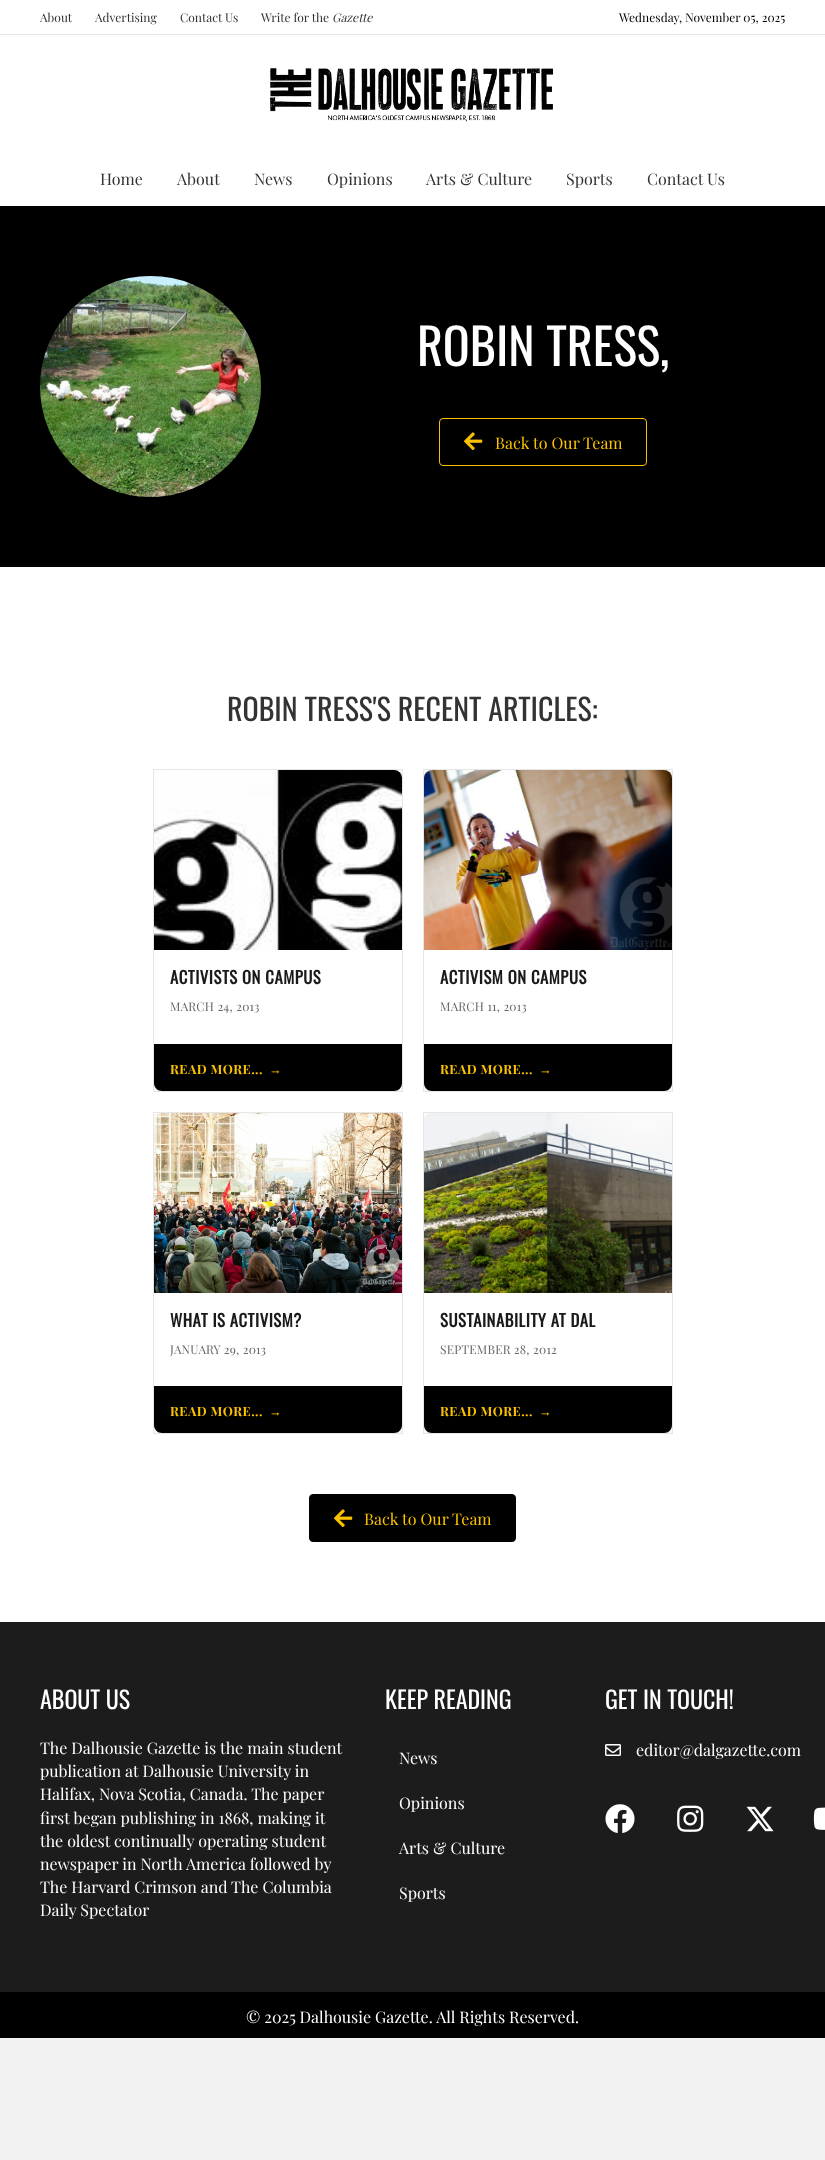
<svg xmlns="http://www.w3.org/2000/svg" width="825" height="2160">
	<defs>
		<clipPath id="clip1"><rect x="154" y="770" width="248" height="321" /></clipPath>
		<clipPath id="clip2"><rect x="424" y="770" width="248" height="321" /></clipPath>
		<clipPath id="clip3"><rect x="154" y="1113" width="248" height="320" /></clipPath>
		<clipPath id="clip4"><rect x="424" y="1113" width="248" height="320" /></clipPath>
	</defs>
	<rect width="100%" height="100%" fill="#F2F2F2" />
	<rect x="0" y="0" width="825" height="206" fill="#FFFFFF" />
	<rect x="0" y="34" width="825" height="1" fill="#E6E6E6" />
	<g font-family="Playfair Display" font-size="12" fill="#333333">
		<text x="40" y="22">About</text>
		<text x="95" y="22">Advertising</text>
		<text x="180" y="22">Contact Us</text>
		<text x="261" y="22">Write for the</text>
	</g>
	<text x="332" y="22" font-family="Playfair Display" font-size="12" font-style="italic" fill="#333333">Gazette</text>
	<text x="619" y="22" font-family="Playfair Display" font-size="12" fill="#000000">Wednesday, November 05, 2025</text>
	<image x="270" y="68" width="284" height="54" href="assets/img1.png" />
	<g font-family="Playfair Display" font-size="16" fill="#333333">
		<text x="100" y="185">Home</text>
		<text x="177" y="185">About</text>
		<text x="254" y="185">News</text>
		<text x="327" y="185">Opinions</text>
		<text x="426" y="185">Arts &amp; Culture</text>
		<text x="566" y="185">Sports</text>
		<text x="647" y="185">Contact Us</text>
	</g>
	<rect x="0" y="567" width="825" height="1055" fill="#FFFFFF" />
	<rect x="0" y="206" width="825" height="361" fill="#000000" />
	<image x="40" y="276" width="221" height="221" href="assets/img2.png" />
	<text x="417" y="366" font-family="Oswald" font-size="50" fill="#FFFFFF">ROBIN TRESS,</text>
	<rect x="439.5" y="418.5" width="207" height="47" rx="3.5" fill="none" stroke="#F9C100" />
	<image x="464" y="432" width="19" height="18" href="assets/img3.png" />
	<text x="495" y="449" font-family="Playfair Display" font-size="16" fill="#F9C100">Back to Our Team</text>
	<text x="227" y="721" font-family="Oswald" font-size="30" fill="#333333">ROBIN TRESS'S RECENT ARTICLES:</text>
	<rect x="153.5" y="769.5" width="249" height="322" fill="none" stroke="#E6E6E6" />
	<g clip-path="url(#clip1)">
		<rect x="154" y="772" width="248" height="321" rx="8" fill="#000000" fill-opacity="0.08" filter="blur(6px)" />
	</g>
	<rect x="154" y="770" width="248" height="321" rx="8" fill="#FFFFFF" />
	<image x="154" y="770" width="248" height="180" href="assets/img4.png" />
	<text x="170" y="984" font-family="Oswald" font-size="16.75" font-weight="700" letter-spacing="0.5" fill="#1A1A1A">ACTIVISTS ON CAMPUS</text>
	<text x="170" y="1011" font-family="Playfair Display" font-size="12" letter-spacing="0.25" fill="#666666">MARCH 24, 2013</text>
	<path d="M154 1044H402V1083C402 1087.5 398.5 1091 394 1091H162C157.5 1091 154 1087.5 154 1083Z" fill="#000000" />
	<text x="170" y="1074" font-family="Playfair Display" font-size="12.75" font-weight="700" letter-spacing="0.5" fill="#F9C100">READ MORE...</text>
	<text x="269" y="1074" font-family="Liberation Serif" font-size="12.75" font-weight="700" letter-spacing="0.5" fill="#F9C100">→</text>
	<rect x="423.5" y="769.5" width="249" height="322" fill="none" stroke="#E6E6E6" />
	<g clip-path="url(#clip2)">
		<rect x="424" y="772" width="248" height="321" rx="8" fill="#000000" fill-opacity="0.08" filter="blur(6px)" />
	</g>
	<rect x="424" y="770" width="248" height="321" rx="8" fill="#FFFFFF" />
	<image x="424" y="770" width="248" height="180" href="assets/img5.png" />
	<text x="440" y="984" font-family="Oswald" font-size="16.75" font-weight="700" letter-spacing="0.5" fill="#1A1A1A">ACTIVISM ON CAMPUS</text>
	<text x="440" y="1011" font-family="Playfair Display" font-size="12" letter-spacing="0.25" fill="#666666">MARCH 11, 2013</text>
	<path d="M424 1044H672V1083C672 1087.5 668.5 1091 664 1091H432C427.5 1091 424 1087.5 424 1083Z" fill="#000000" />
	<text x="440" y="1074" font-family="Playfair Display" font-size="12.75" font-weight="700" letter-spacing="0.5" fill="#F9C100">READ MORE...</text>
	<text x="539" y="1074" font-family="Liberation Serif" font-size="12.75" font-weight="700" letter-spacing="0.5" fill="#F9C100">→</text>
	<rect x="153.5" y="1112.5" width="249" height="321" fill="none" stroke="#E6E6E6" />
	<g clip-path="url(#clip3)">
		<rect x="154" y="1115" width="248" height="320" rx="8" fill="#000000" fill-opacity="0.08" filter="blur(6px)" />
	</g>
	<rect x="154" y="1113" width="248" height="320" rx="8" fill="#FFFFFF" />
	<image x="154" y="1113" width="248" height="180" href="assets/img6.png" />
	<text x="170" y="1327" font-family="Oswald" font-size="16.75" font-weight="700" letter-spacing="0.5" fill="#1A1A1A">WHAT IS ACTIVISM?</text>
	<text x="170" y="1354" font-family="Playfair Display" font-size="12" letter-spacing="0.25" fill="#666666">JANUARY 29, 2013</text>
	<path d="M154 1386H402V1425C402 1429.5 398.5 1433 394 1433H162C157.5 1433 154 1429.5 154 1425Z" fill="#000000" />
	<text x="170" y="1416" font-family="Playfair Display" font-size="12.75" font-weight="700" letter-spacing="0.5" fill="#F9C100">READ MORE...</text>
	<text x="269" y="1416" font-family="Liberation Serif" font-size="12.75" font-weight="700" letter-spacing="0.5" fill="#F9C100">→</text>
	<rect x="423.5" y="1112.5" width="249" height="321" fill="none" stroke="#E6E6E6" />
	<g clip-path="url(#clip4)">
		<rect x="424" y="1115" width="248" height="320" rx="8" fill="#000000" fill-opacity="0.08" filter="blur(6px)" />
	</g>
	<rect x="424" y="1113" width="248" height="320" rx="8" fill="#FFFFFF" />
	<image x="424" y="1113" width="248" height="180" href="assets/img7.png" />
	<text x="440" y="1327" font-family="Oswald" font-size="16.75" font-weight="700" letter-spacing="0.5" fill="#1A1A1A">SUSTAINABILITY AT DAL</text>
	<text x="440" y="1354" font-family="Playfair Display" font-size="12" letter-spacing="0.25" fill="#666666">SEPTEMBER 28, 2012</text>
	<path d="M424 1386H672V1425C672 1429.5 668.5 1433 664 1433H432C427.5 1433 424 1429.5 424 1425Z" fill="#000000" />
	<text x="440" y="1416" font-family="Playfair Display" font-size="12.75" font-weight="700" letter-spacing="0.5" fill="#F9C100">READ MORE...</text>
	<text x="539" y="1416" font-family="Liberation Serif" font-size="12.75" font-weight="700" letter-spacing="0.5" fill="#F9C100">→</text>
	<rect x="309.5" y="1494.5" width="206" height="47" rx="3.5" fill="#000000" stroke="#000000" />
	<image x="334" y="1509" width="19" height="18" href="assets/img3.png" />
	<text x="364" y="1525" font-family="Playfair Display" font-size="16" fill="#F9C100">Back to Our Team</text>
	<rect x="0" y="1622" width="825" height="370" fill="#1C1C1C" />
	<text x="40" y="1709" font-family="Oswald" font-size="24" fill="#FFFFFF">ABOUT US</text>
	<g font-family="Playfair Display" font-size="16" fill="#FFFFFF">
		<text x="40" y="1754">The Dalhousie Gazette is the main student</text>
		<text x="40" y="1777">publication at Dalhousie University in</text>
		<text x="40" y="1800">Halifax, Nova Scotia, Canada. The paper</text>
		<text x="40" y="1824">first began publishing in 1868, making it</text>
		<text x="40" y="1847">the oldest continually operating student</text>
		<text x="40" y="1870">newspaper in North America followed by</text>
		<text x="40" y="1893">The Harvard Crimson and The Columbia</text>
		<text x="40" y="1916">Daily Spectator</text>
	</g>
	<text x="385" y="1709" font-family="Oswald" font-size="24" fill="#FFFFFF">KEEP READING</text>
	<g font-family="Playfair Display" font-size="16" fill="#FFFFFF">
		<text x="399" y="1764">News</text>
		<text x="399" y="1809">Opinions</text>
		<text x="399" y="1854">Arts &amp; Culture</text>
		<text x="399" y="1899">Sports</text>
	</g>
	<text x="605" y="1709" font-family="Oswald" font-size="24" fill="#FFFFFF">GET IN TOUCH!</text>
	<image x="605" y="1744" width="16" height="12" href="assets/img8.png" />
	<text x="636" y="1756" font-family="Playfair Display" font-size="16" fill="#FFFFFF">editor@dalgazette.com</text>
	<image x="605" y="1804" width="30" height="29" href="assets/img9.png" />
	<image x="677" y="1805" width="27" height="27" href="assets/img10.png" />
	<image x="746" y="1806" width="28" height="26" href="assets/img11.png" />
	<image x="813" y="1807" width="12" height="23" href="assets/img12.png" />
	<rect x="0" y="1992" width="825" height="46" fill="#000000" />
	<text x="246" y="2023" font-family="Playfair Display" font-size="16" fill="#FFFFFF">© 2025 Dalhousie Gazette. All Rights Reserved.</text>
</svg>
